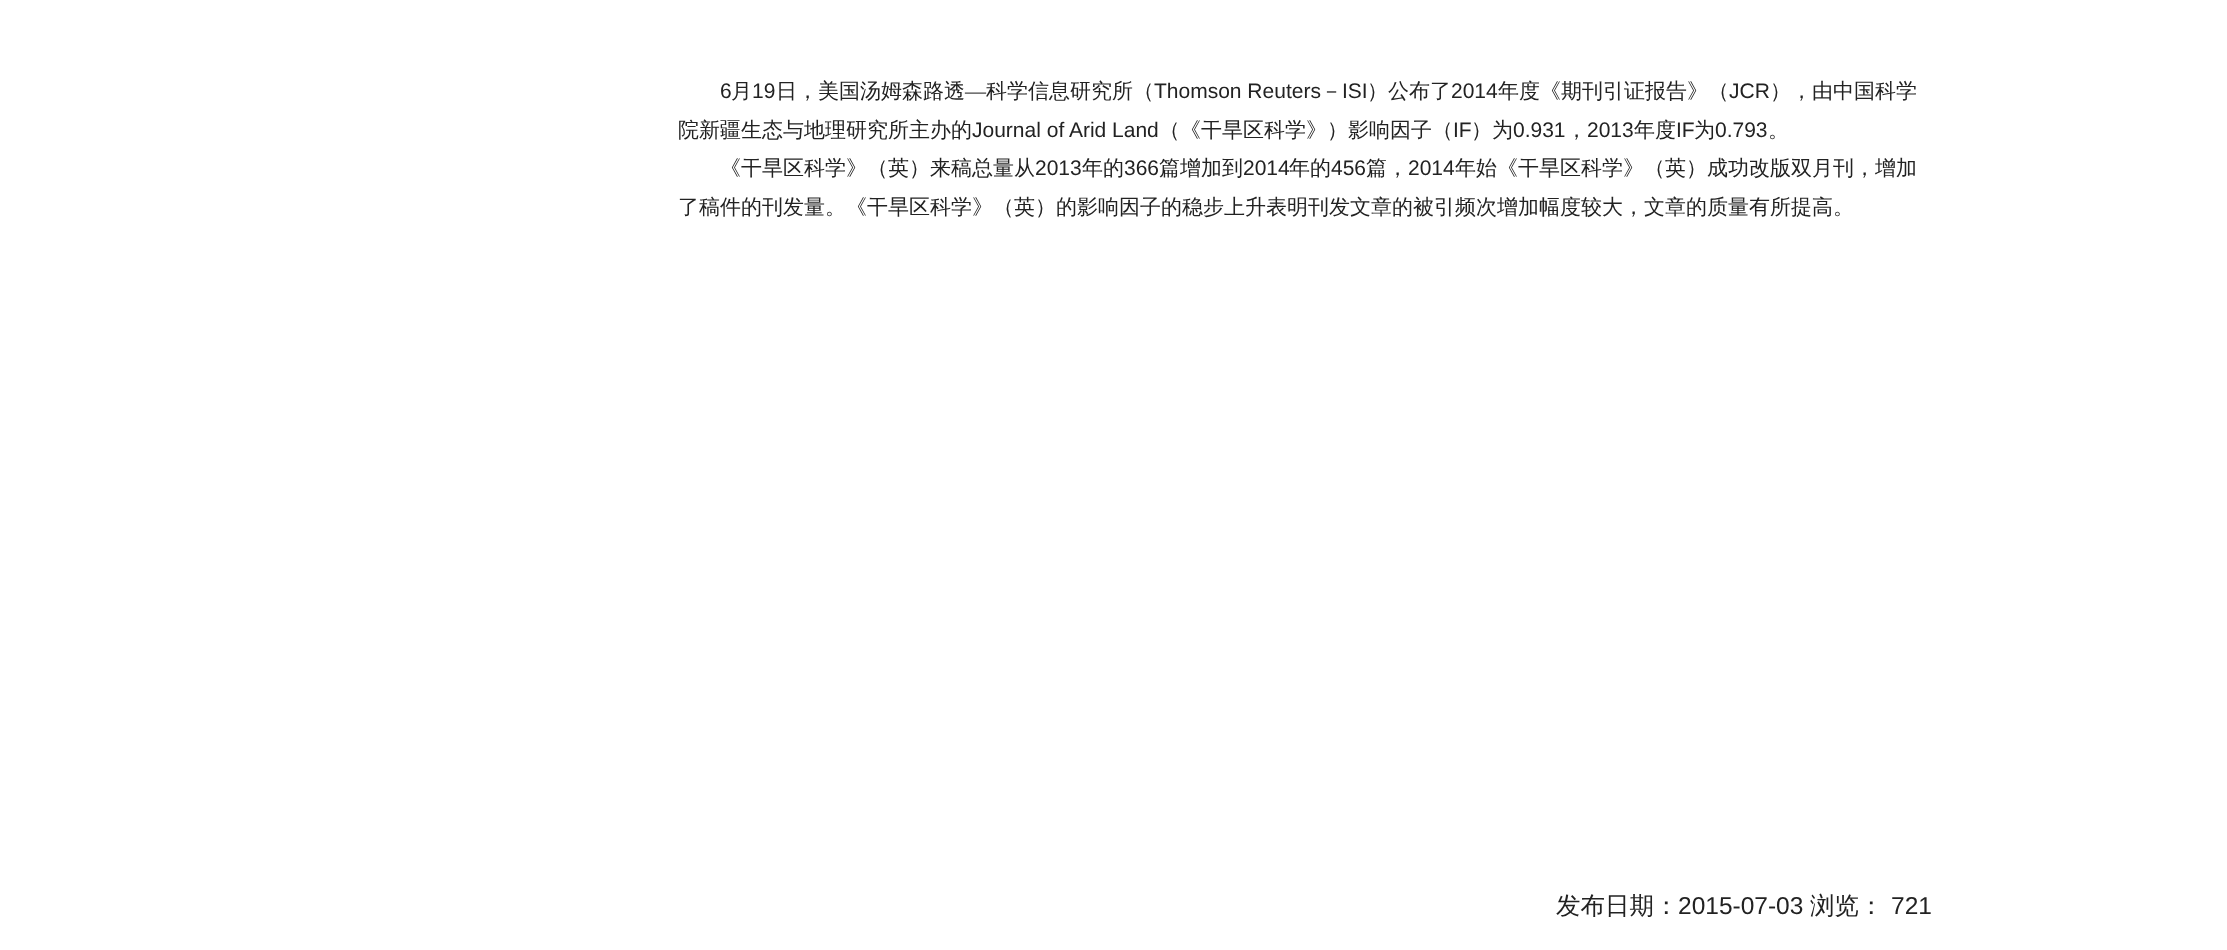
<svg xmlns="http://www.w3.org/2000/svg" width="2227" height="950">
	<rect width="100%" height="100%" fill="#FFFFFF" />
	<text x="720" y="98" font-family="Liberation Sans" font-size="21" fill="#222222">6</text>
	<text x="731" y="98" font-family="WenQuanYi Zen Hei" font-size="21" font-weight="500" fill="#222222">月</text>
	<text x="752" y="98" font-family="Liberation Sans" font-size="21" fill="#222222">19</text>
	<text x="776" y="98" font-family="WenQuanYi Zen Hei" font-size="21" font-weight="500" fill="#222222">日，美国汤姆森路透</text>
	<text x="965" y="98" font-family="Liberation Serif" font-size="21" fill="#222222">—</text>
	<text x="986" y="98" font-family="WenQuanYi Zen Hei" font-size="21" font-weight="500" fill="#222222">科学信息研究所（</text>
	<text x="1154" y="98" font-family="Liberation Sans" font-size="21" fill="#222222">Thomson Reuters</text>
	<text x="1321" y="98" font-family="WenQuanYi Zen Hei" font-size="21" font-weight="500" fill="#222222">－</text>
	<text x="1342" y="98" font-family="Liberation Sans" font-size="21" fill="#222222">ISI</text>
	<text x="1367" y="98" font-family="WenQuanYi Zen Hei" font-size="21" font-weight="500" fill="#222222">）公布了</text>
	<text x="1451" y="98" font-family="Liberation Sans" font-size="21" fill="#222222">2014</text>
	<text x="1498" y="98" font-family="WenQuanYi Zen Hei" font-size="21" font-weight="500" fill="#222222">年度《期刊引证报告》（</text>
	<text x="1729" y="98" font-family="Liberation Sans" font-size="21" fill="#222222">JCR</text>
	<g font-family="WenQuanYi Zen Hei" font-size="21" font-weight="500" fill="#222222">
		<text x="1770" y="98">），由中国科学</text>
		<text x="678" y="137">院新疆生态与地理研究所主办的</text>
	</g>
	<text x="972" y="137" font-family="Liberation Sans" font-size="21" fill="#222222">Journal of Arid Land</text>
	<text x="1159" y="137" font-family="WenQuanYi Zen Hei" font-size="21" font-weight="500" fill="#222222">（《干旱区科学》）影响因子（</text>
	<text x="1453" y="137" font-family="Liberation Sans" font-size="21" fill="#222222">IF</text>
	<text x="1471" y="137" font-family="WenQuanYi Zen Hei" font-size="21" font-weight="500" fill="#222222">）为</text>
	<text x="1513" y="137" font-family="Liberation Sans" font-size="21" fill="#222222">0.931</text>
	<text x="1566" y="137" font-family="WenQuanYi Zen Hei" font-size="21" font-weight="500" fill="#222222">，</text>
	<text x="1587" y="137" font-family="Liberation Sans" font-size="21" fill="#222222">2013</text>
	<text x="1634" y="137" font-family="WenQuanYi Zen Hei" font-size="21" font-weight="500" fill="#222222">年度</text>
	<text x="1676" y="137" font-family="Liberation Sans" font-size="21" fill="#222222">IF</text>
	<text x="1694" y="137" font-family="WenQuanYi Zen Hei" font-size="21" font-weight="500" fill="#222222">为</text>
	<text x="1715" y="137" font-family="Liberation Sans" font-size="21" fill="#222222">0.793</text>
	<g font-family="WenQuanYi Zen Hei" font-size="21" font-weight="500" fill="#222222">
		<text x="1768" y="137">。</text>
		<text x="720" y="175">《干旱区科学》（英）来稿总量从</text>
	</g>
	<text x="1035" y="175" font-family="Liberation Sans" font-size="21" fill="#222222">2013</text>
	<text x="1082" y="175" font-family="WenQuanYi Zen Hei" font-size="21" font-weight="500" fill="#222222">年的</text>
	<text x="1124" y="175" font-family="Liberation Sans" font-size="21" fill="#222222">366</text>
	<text x="1159" y="175" font-family="WenQuanYi Zen Hei" font-size="21" font-weight="500" fill="#222222">篇增加到</text>
	<text x="1243" y="175" font-family="Liberation Sans" font-size="21" fill="#222222">2014</text>
	<text x="1289" y="175" font-family="WenQuanYi Zen Hei" font-size="21" font-weight="500" fill="#222222">年的</text>
	<text x="1331" y="175" font-family="Liberation Sans" font-size="21" fill="#222222">456</text>
	<text x="1366" y="175" font-family="WenQuanYi Zen Hei" font-size="21" font-weight="500" fill="#222222">篇，</text>
	<text x="1408" y="175" font-family="Liberation Sans" font-size="21" fill="#222222">2014</text>
	<g font-family="WenQuanYi Zen Hei" font-size="21" font-weight="500" fill="#222222">
		<text x="1455" y="175">年始《干旱区科学》（英）成功改版双月刊，增加</text>
		<text x="678" y="214">了稿件的刊发量。《干旱区科学》（英）的影响因子的稳步上升表明刊发文章的被引频次增加幅度较大，文章的质量有所提高。</text>
	</g>
	<text x="1556" y="914" font-family="WenQuanYi Zen Hei" font-size="24.5" font-weight="500" fill="#222222">发布日期：</text>
	<text x="1678" y="914" font-family="Liberation Sans" font-size="24.5" fill="#222222">2015-07-03</text>
	<text x="1810" y="914" font-family="WenQuanYi Zen Hei" font-size="24.5" font-weight="500" fill="#222222">浏览：</text>
	<text x="1891" y="914" font-family="Liberation Sans" font-size="24.5" fill="#222222">721</text>
</svg>
